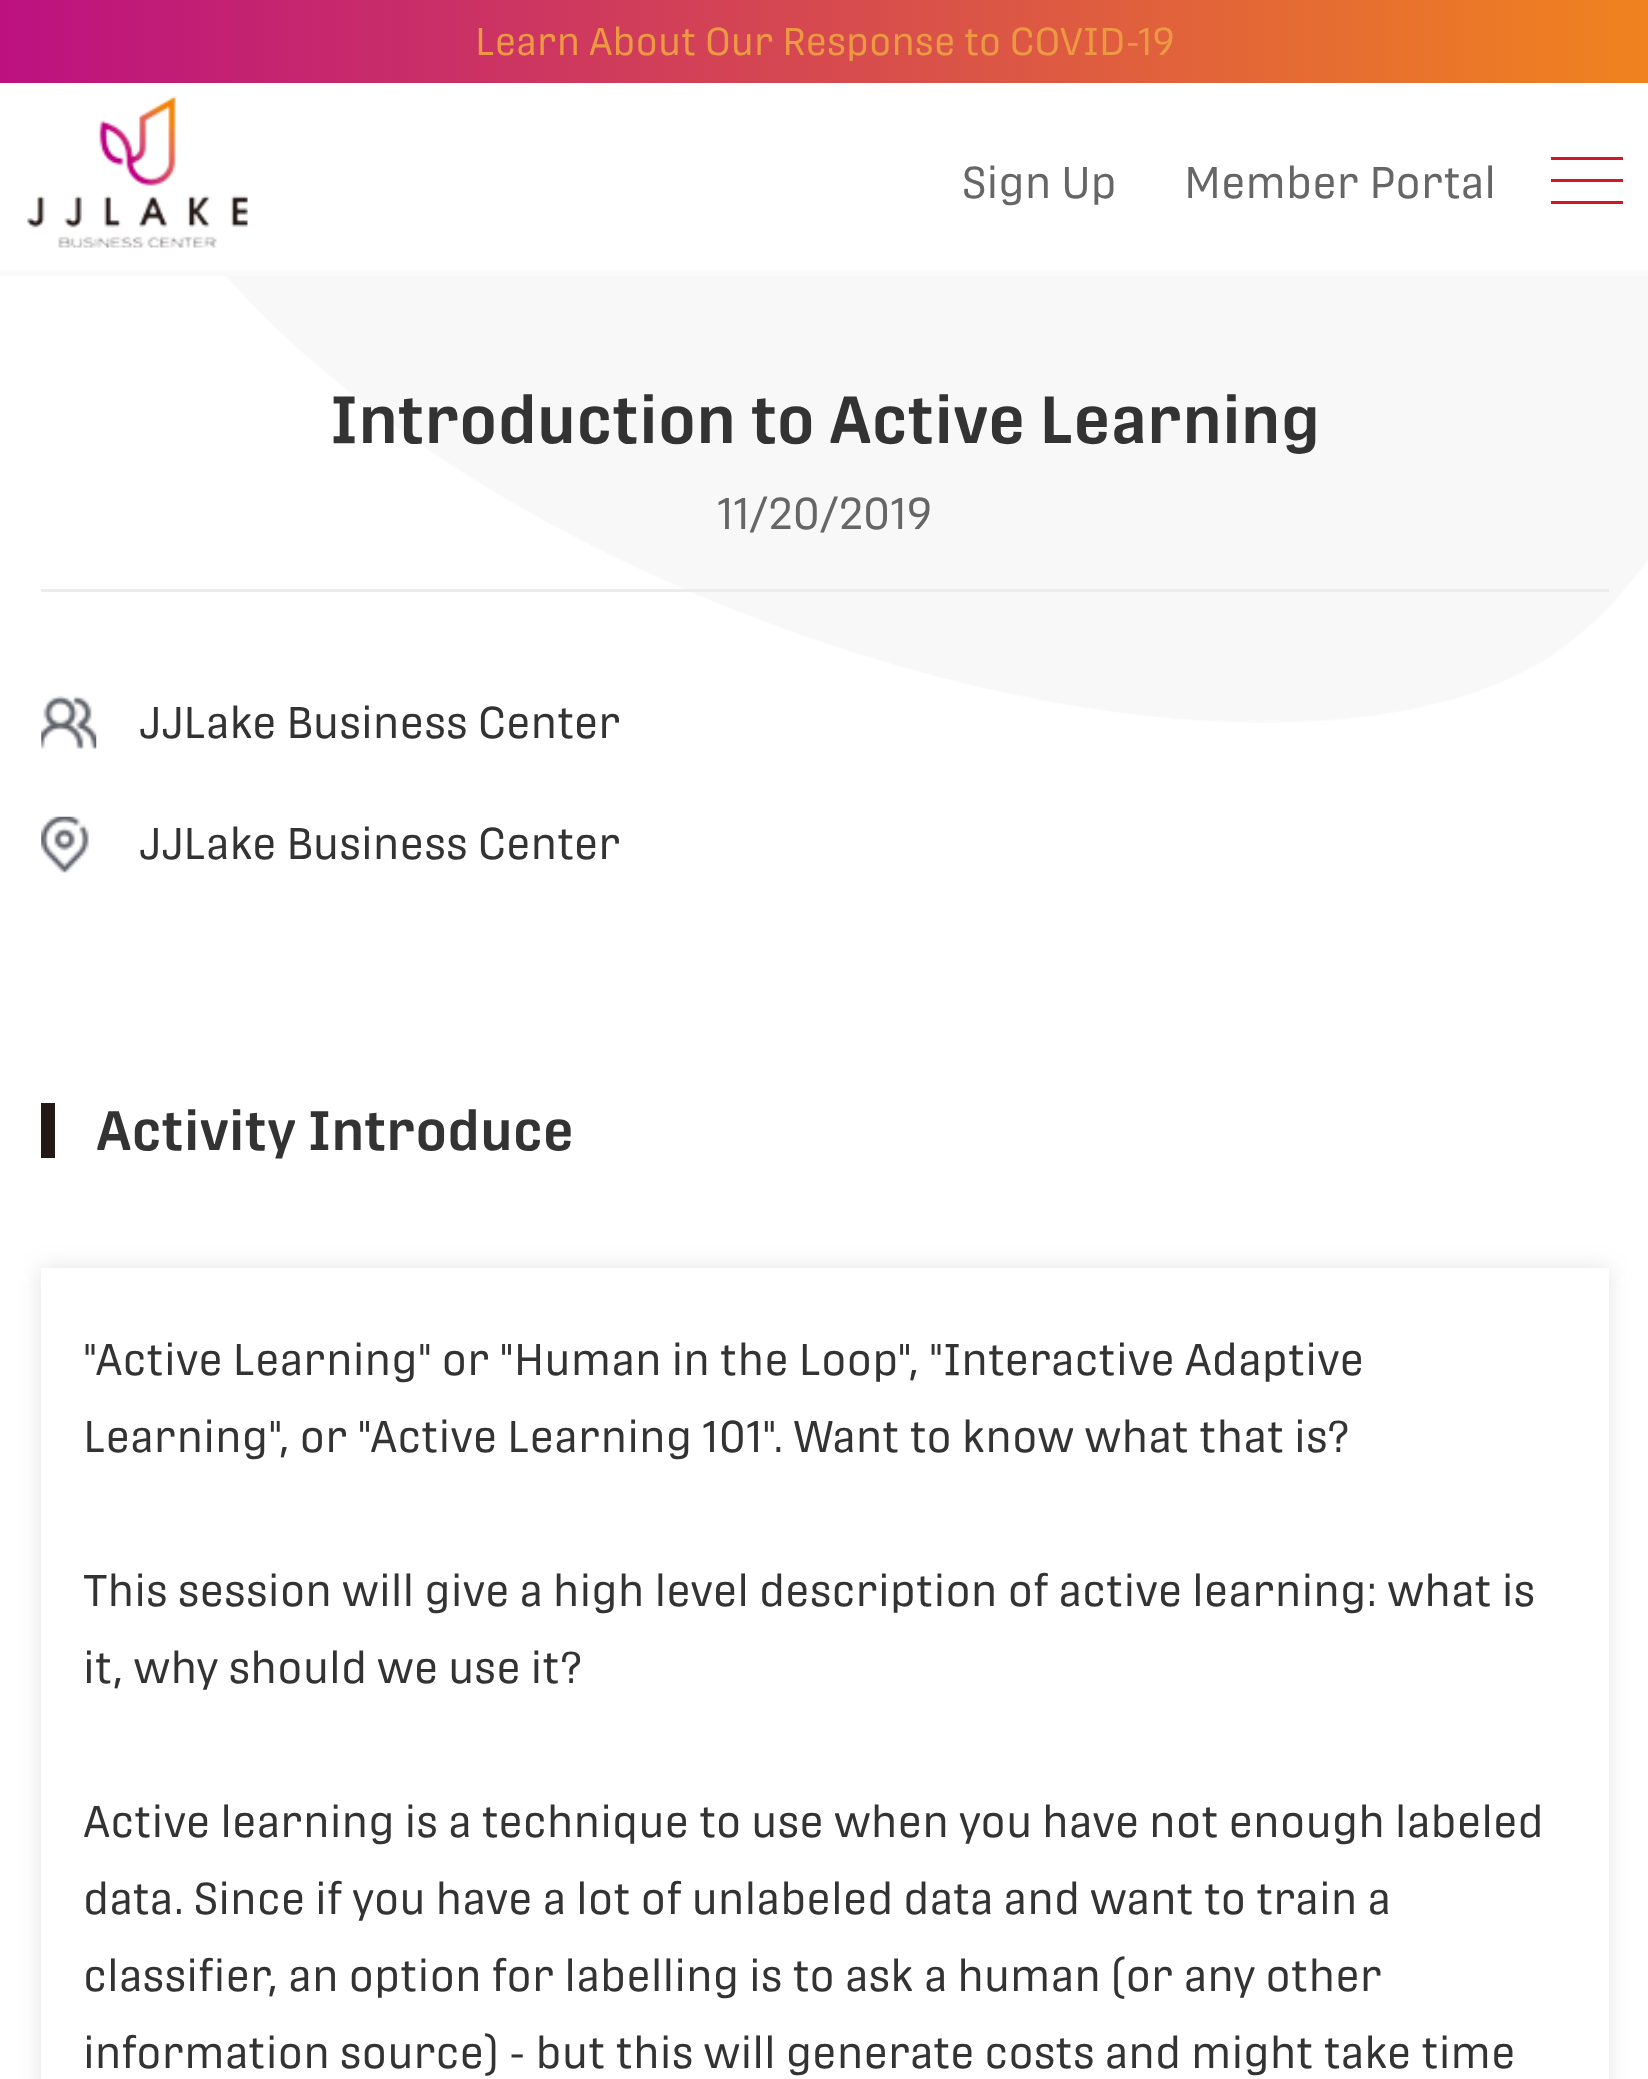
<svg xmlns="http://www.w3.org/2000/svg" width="1648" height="2079">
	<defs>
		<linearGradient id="g1" gradientUnits="userSpaceOnUse" x1="0" y1="41" x2="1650" y2="41"><stop offset="0" stop-color="#BC1180" /><stop offset="1" stop-color="#F0831E" /></linearGradient>
		<clipPath id="clip1"><path d="M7 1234H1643V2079H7ZM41 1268H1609V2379H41Z" clip-rule="evenodd" /></clipPath>
	</defs>
	<rect width="100%" height="100%" fill="#FFFFFF" />
	<image x="225" y="276" width="1423" height="447" href="assets/img1.png" />
	<rect x="0" y="0" width="1648" height="83" fill="url(#g1)" />
	<text x="475" y="55" font-family="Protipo" font-size="38.5" fill="#ED9843">Learn About Our Response to COVID-19</text>
	<rect x="0" y="270" width="1648" height="6" fill="#FAFAFA" />
	<image x="27" y="96" width="221" height="152" href="assets/img2.png" />
	<g font-family="Protipo" font-size="44" fill="#666666">
		<text x="962" y="198">Sign Up</text>
		<text x="1184" y="198">Member Portal</text>
	</g>
	<rect x="1551" y="179" width="72" height="3" fill="#D3172B" />
	<rect x="1551" y="157" width="72" height="3" fill="#D3172B" />
	<rect x="1551" y="201" width="72" height="3" fill="#D3172B" />
	<rect x="41" y="589" width="1568" height="3" fill="#EDECEC" />
	<text x="330" y="443" font-family="Protipo" font-size="66" font-weight="600" fill="#333333">Introduction to Active Learning</text>
	<text x="717" y="529" font-family="Protipo" font-size="44" fill="#666666">11/20/2019</text>
	<image x="41" y="695" width="56" height="54" href="assets/img3.png" />
	<text x="138" y="738" font-family="Protipo" font-size="44" fill="#333333">JJLake Business Center</text>
	<image x="41" y="816" width="48" height="57" href="assets/img4.png" />
	<text x="138" y="859" font-family="Protipo" font-size="44" fill="#333333">JJLake Business Center</text>
	<rect x="41" y="1103" width="14" height="55" fill="#231816" />
	<text x="96" y="1150" font-family="Protipo" font-size="55" font-weight="600" fill="#333333">Activity Introduce</text>
	<g clip-path="url(#clip1)">
		<rect x="41" y="1268" width="1568" height="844" fill="#787575" fill-opacity="0.2" filter="blur(11px)" />
	</g>
	<g font-family="Protipo" font-size="44" fill="#333333">
		<text x="83" y="1375">"Active Learning" or "Human in the Loop", "Interactive Adaptive</text>
		<text x="83" y="1452">Learning", or "Active Learning 101". Want to know what that is?</text>
		<text x="83" y="1606">This session will give a high level description of active learning: what is</text>
		<text x="83" y="1683">it, why should we use it?</text>
		<text x="83" y="1837">Active learning is a technique to use when you have not enough labeled</text>
		<text x="83" y="1914">data. Since if you have a lot of unlabeled data and want to train a</text>
		<text x="83" y="1991">classifier, an option for labelling is to ask a human (or any other</text>
		<text x="83" y="2068">information source) - but this will generate costs and might take time</text>
	</g>
</svg>
